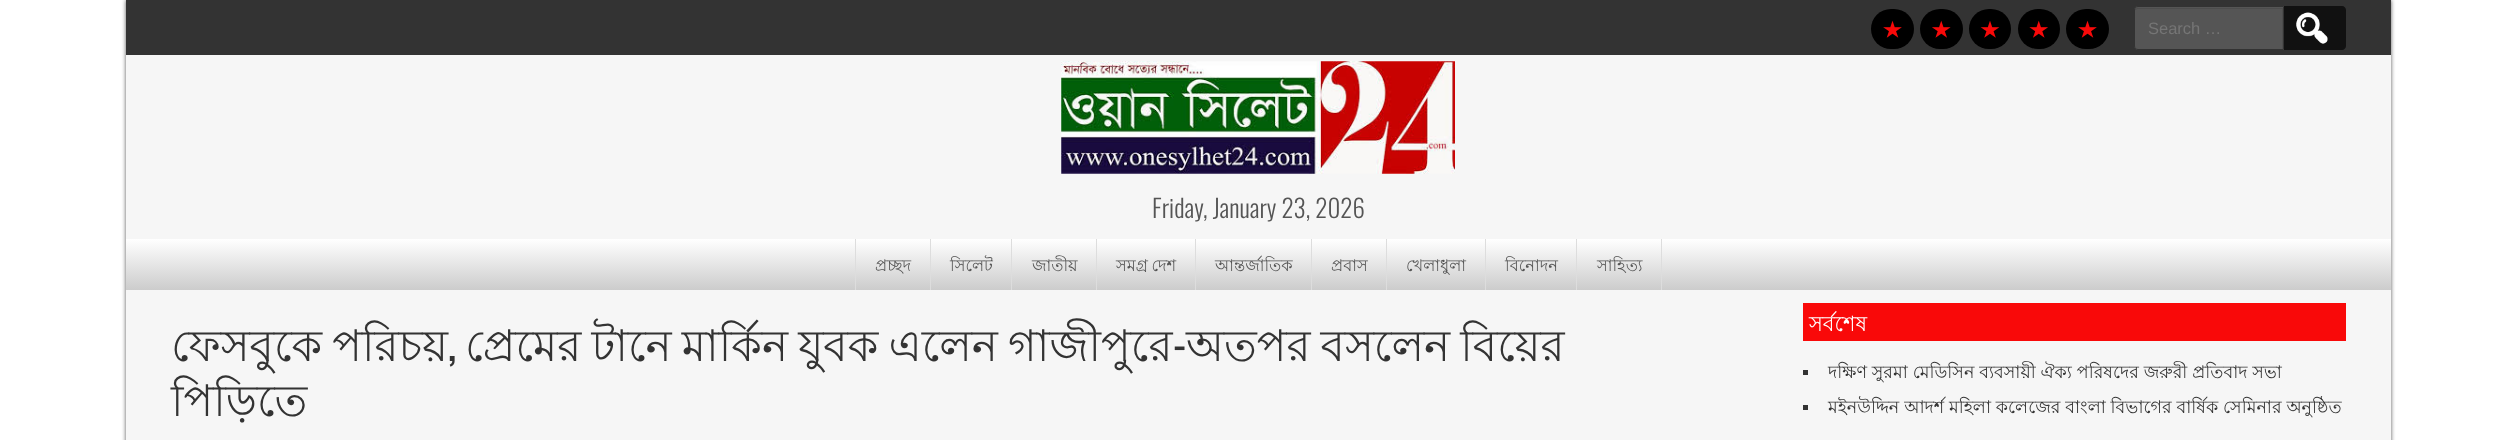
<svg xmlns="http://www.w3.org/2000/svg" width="2517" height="440">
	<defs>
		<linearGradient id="g1" gradientUnits="userSpaceOnUse" x1="1259" y1="239" x2="1259" y2="290"><stop offset="0" stop-color="#FFFFFF" /><stop offset="1" stop-color="#CCCCCC" /><stop offset="1" stop-color="#F6F6F6" /></linearGradient>
	</defs>
	<rect width="100%" height="100%" fill="#FFFFFF" />
	<rect x="126" y="0" width="2265" height="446" fill="#555555" filter="blur(2px)" />
	<rect x="126" y="55" width="2265" height="385" fill="#F6F6F6" />
	<rect x="126" y="0" width="2265" height="55" fill="#333333" />
	<rect x="1871" y="9" width="43" height="40" rx="20" fill="#000000" />
	<image x="1883" y="20" width="19" height="18" href="assets/img1.png" />
	<rect x="1920" y="9" width="43" height="40" rx="20" fill="#000000" />
	<image x="1932" y="20" width="19" height="18" href="assets/img2.png" />
	<rect x="1969" y="9" width="42" height="40" rx="20" fill="#000000" />
	<image x="1980" y="21" width="20" height="17" href="assets/img3.png" />
	<rect x="2018" y="9" width="42" height="40" rx="20" fill="#000000" />
	<image x="2029" y="20" width="19" height="18" href="assets/img4.png" />
	<rect x="2066" y="9" width="43" height="40" rx="20" fill="#000000" />
	<image x="2078" y="20" width="19" height="18" href="assets/img1.png" />
	<path d="M2278 6H2342C2344 6 2346 8 2346 10V46C2346 48 2344 50 2342 50H2278Z" fill="#111111" />
	<path d="M2138 6H2284V50H2138C2136 50 2134 48 2134 46V10C2134 8 2136 6 2138 6Z" fill="#555555" />
	<path d="M2138 9H2282V49H2283V8H2138C2136 8 2135 9 2135 10V11C2135 10 2136 9 2138 9Z" fill="#4D4D4D" />
	<path d="M2138 6.5H2283.5V49.5H2138C2136 49.5 2134.5 48 2134.5 46V10C2134.5 8 2136 6.5 2138 6.5Z" fill="none" stroke="#333333" />
	<text x="2148" y="34" font-family="Liberation Sans" font-size="16.5" fill="#757575">Search …</text>
	<image x="2296" y="12" width="32" height="32" href="assets/img5.png" />
	<image x="1061" y="61" width="394" height="113" href="assets/img6.png" />
	<text x="1152" y="218" font-family="Oswald" font-size="25" font-weight="300" fill="#555555">Friday, January 23, 2026</text>
	<rect x="126" y="239" width="2265" height="51" fill="url(#g1)" />
	<rect x="855" y="239" width="1" height="51" fill="#DDDDDD" />
	<rect x="930" y="239" width="1" height="51" fill="#DDDDDD" />
	<text x="875" y="271" font-family="Lohit Bengali" font-size="16.25" fill="#555555">প্রচ্ছদ</text>
	<rect x="1011" y="239" width="1" height="51" fill="#DDDDDD" />
	<text x="950" y="271" font-family="Lohit Bengali" font-size="16.25" fill="#555555">সিলেট</text>
	<rect x="1096" y="239" width="1" height="51" fill="#DDDDDD" />
	<text x="1032" y="271" font-family="Lohit Bengali" font-size="16.25" fill="#555555">জাতীয়</text>
	<rect x="1195" y="239" width="1" height="51" fill="#DDDDDD" />
	<text x="1116" y="271" word-spacing="-1" font-family="Lohit Bengali" font-size="16.25" fill="#555555">সমগ্র দেশ</text>
	<rect x="1311" y="239" width="1" height="51" fill="#DDDDDD" />
	<text x="1215" y="271" font-family="Lohit Bengali" font-size="16.25" fill="#555555">আন্তর্জাতিক</text>
	<rect x="1386" y="239" width="1" height="51" fill="#DDDDDD" />
	<text x="1331" y="271" font-family="Lohit Bengali" font-size="16.25" fill="#555555">প্রবাস</text>
	<rect x="1485" y="239" width="1" height="51" fill="#DDDDDD" />
	<text x="1406" y="271" font-family="Lohit Bengali" font-size="16.25" fill="#555555">খেলাধুলা</text>
	<rect x="1576" y="239" width="1" height="51" fill="#DDDDDD" />
	<text x="1505" y="271" font-family="Lohit Bengali" font-size="16.25" fill="#555555">বিনোদন</text>
	<rect x="1661" y="239" width="1" height="51" fill="#DDDDDD" />
	<text x="1597" y="271" font-family="Lohit Bengali" font-size="16.25" fill="#555555">সাহিত্য</text>
	<g font-family="Lohit Bengali" font-size="43.75" fill="#333333">
		<text x="171" y="361" word-spacing="-2">ফেসবুকে পরিচয়</text>
		<text x="465" y="361" word-spacing="-2">প্রেমের টানে মার্কিন যুবক এলেন গাজীপুরে</text>
	</g>
	<text x="1173" y="361" font-family="Oswald" font-size="43.75" fill="#333333">-</text>
	<text x="1186" y="361" word-spacing="-2" font-family="Lohit Bengali" font-size="43.75" fill="#333333">অতপর বসলেন বিয়ের</text>
	<text x="448" y="361" font-family="Oswald" font-size="43.75" fill="#333333">,</text>
	<text x="171" y="416" font-family="Lohit Bengali" font-size="43.75" fill="#333333">পিড়িতে</text>
	<rect x="1803" y="303" width="543" height="38" fill="#F90909" />
	<text x="1809" y="331" font-family="Lohit Bengali" font-size="21" fill="#FFFFFF">সর্বশেষ</text>
	<rect x="1803" y="370" width="5" height="5" fill="#333333" />
	<text x="1828" y="378" font-family="Lohit Bengali" font-size="17.5" fill="#333333">দক্ষিণ সুরমা মেডিসিন ব্যবসায়ী ঐক্য পরিষদের জরুরী প্রতিবাদ সভা</text>
	<rect x="1803" y="405" width="5" height="5" fill="#333333" />
	<text x="1828" y="413" font-family="Lohit Bengali" font-size="17.5" fill="#333333">মইনউদ্দিন আদর্শ মহিলা কলেজের বাংলা বিভাগের বার্ষিক সেমিনার অনুষ্ঠিত</text>
</svg>
